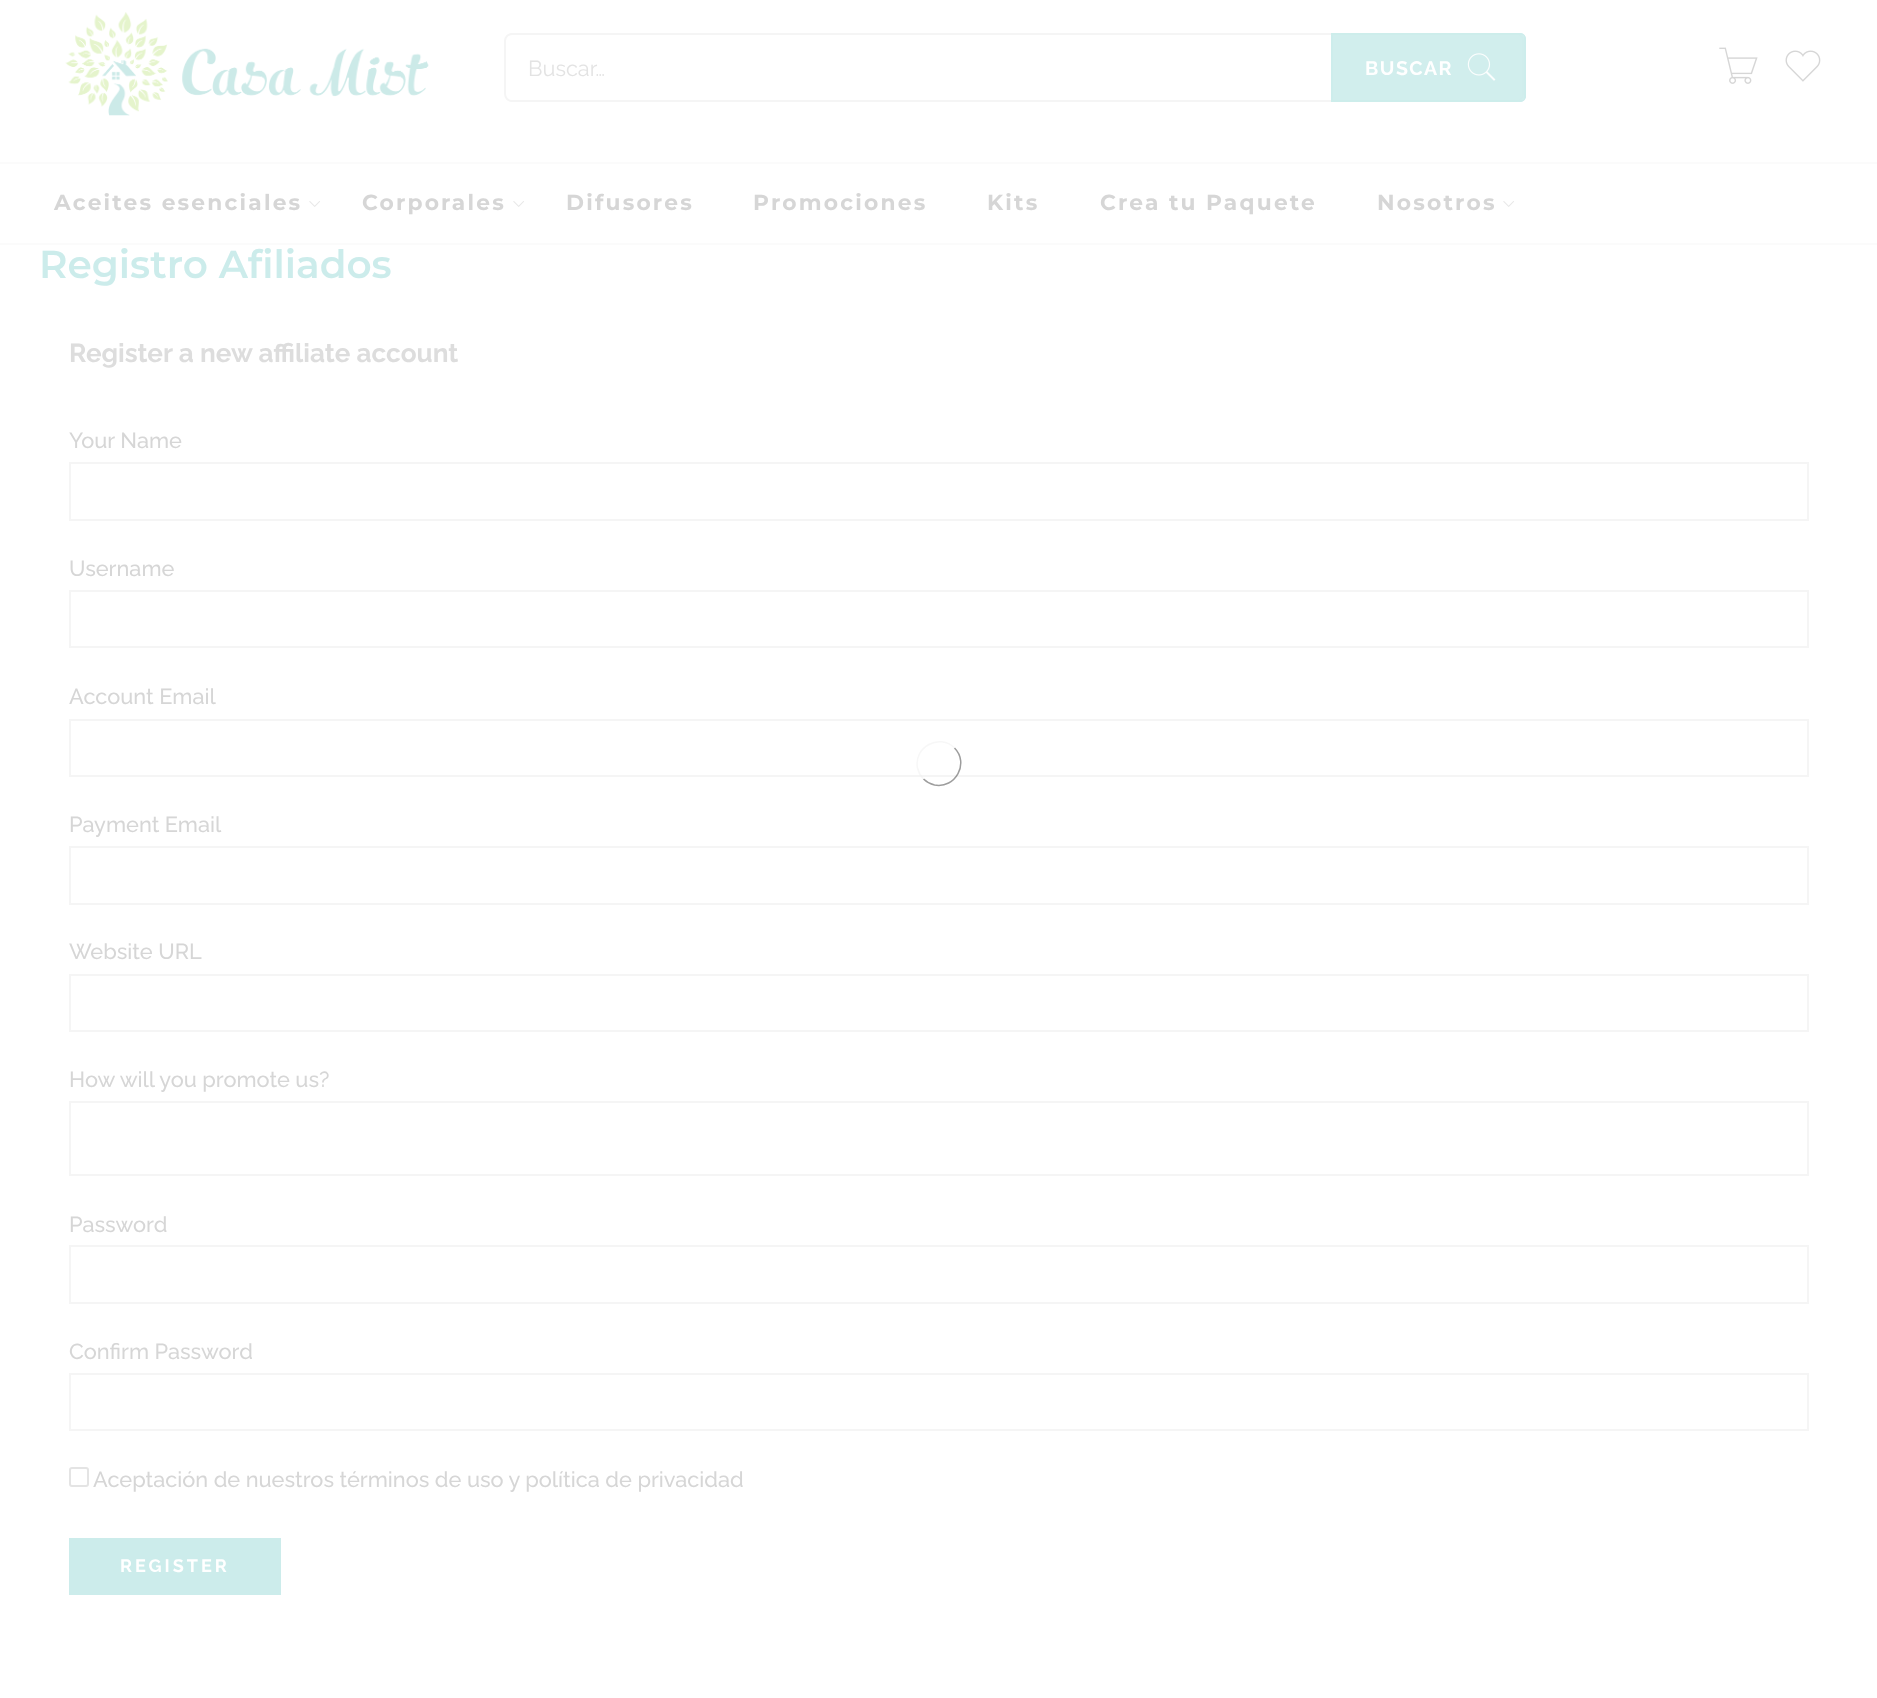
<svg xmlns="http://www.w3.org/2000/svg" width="1877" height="1698">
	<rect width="100%" height="100%" fill="#FFFFFF" />
	<image x="65" y="12" width="364" height="104" href="assets/img1.png" />
	<rect x="505" y="34" width="1018" height="67" rx="7" fill="none" stroke="#F5F5F5" stroke-width="2" />
	<text x="528" y="76" font-family="Raleway" font-size="21.75" fill="#E3E3E3">Buscar…</text>
	<path d="M1331 33H1520C1523.5 33 1526 35.5 1526 39V96C1526 99.5 1523.5 102 1520 102H1331Z" fill="#CCECEB" fill-opacity="0.9" />
	<path d="M1331 33V102H1520C1523 102 1526 99 1526 96V39C1526 36 1523 33 1520 33ZM1333 35V100H1524V35Z" fill="#CCECEB" fill-opacity="0.9" fill-rule="evenodd" />
	<text x="1365" y="75" font-family="Raleway" font-size="19.5" font-weight="700" letter-spacing="1.5" fill="#FFFFFF">BUSCAR</text>
	<image x="1467" y="53" width="29" height="28" href="assets/img2.png" />
	<image x="1719" y="47" width="39" height="37" href="assets/img3.png" />
	<image x="1785" y="50" width="36" height="32" href="assets/img4.png" />
	<rect x="0" y="162" width="1877" height="2" fill="#FBFBFB" />
	<rect x="0" y="243" width="1877" height="2" fill="#FBFBFB" />
	<text x="54" y="210" font-family="Montserrat" font-size="21.75" font-weight="700" letter-spacing="2.2" fill="#D6D6D6">Aceites esenciales</text>
	<image x="309" y="201" width="11" height="6" href="assets/img5.png" />
	<text x="362" y="210" font-family="Montserrat" font-size="21.75" font-weight="700" letter-spacing="2.2" fill="#D6D6D6">Corporales</text>
	<image x="513" y="201" width="11" height="6" href="assets/img5.png" />
	<g font-family="Montserrat" font-size="21.75" font-weight="700" letter-spacing="2.2" fill="#D6D6D6">
		<text x="566" y="210">Difusores</text>
		<text x="753" y="210">Promociones</text>
		<text x="987" y="210">Kits</text>
		<text x="1100" y="210">Crea tu Paquete</text>
		<text x="1377" y="210">Nosotros</text>
	</g>
	<image x="1503" y="201" width="11" height="6" href="assets/img5.png" />
	<text x="39" y="278" font-family="Montserrat" font-size="39" font-weight="600" fill="#CCECEB">Registro Afiliados</text>
	<text x="69" y="362" font-family="Raleway" font-size="26.1" font-weight="700" fill="#DDDDDD">Register a new affiliate account</text>
	<text x="69" y="448" font-family="Raleway" font-size="21.75" font-weight="500" fill="#D6D6D6">Your Name</text>
	<rect x="70" y="463" width="1738" height="57" fill="none" stroke="#F5F5F5" stroke-width="2" />
	<text x="69" y="576" font-family="Raleway" font-size="21.75" font-weight="500" fill="#D6D6D6">Username</text>
	<rect x="70" y="591" width="1738" height="56" fill="none" stroke="#F5F5F5" stroke-width="2" />
	<text x="69" y="704" font-family="Raleway" font-size="21.75" font-weight="500" fill="#D6D6D6">Account Email</text>
	<rect x="70" y="720" width="1738" height="56" fill="none" stroke="#F5F5F5" stroke-width="2" />
	<text x="69" y="832" font-family="Raleway" font-size="21.75" font-weight="500" fill="#D6D6D6">Payment Email</text>
	<rect x="70" y="847" width="1738" height="57" fill="none" stroke="#F5F5F5" stroke-width="2" />
	<text x="69" y="959" font-family="Raleway" font-size="21.75" font-weight="500" fill="#D6D6D6">Website URL</text>
	<rect x="70" y="975" width="1738" height="56" fill="none" stroke="#F5F5F5" stroke-width="2" />
	<text x="69" y="1087" font-family="Raleway" font-size="21.75" font-weight="500" fill="#D6D6D6">How will you promote us?</text>
	<rect x="70" y="1102" width="1738" height="73" fill="none" stroke="#F5F5F5" stroke-width="2" />
	<text x="69" y="1232" font-family="Raleway" font-size="21.75" font-weight="500" fill="#D6D6D6">Password</text>
	<rect x="70" y="1246" width="1738" height="57" fill="none" stroke="#F5F5F5" stroke-width="2" />
	<text x="69" y="1359" font-family="Raleway" font-size="21.75" font-weight="500" fill="#D6D6D6">Confirm Password</text>
	<rect x="70" y="1374" width="1738" height="56" fill="none" stroke="#F5F5F5" stroke-width="2" />
	<rect x="70" y="1468" width="18" height="18" rx="2" fill="none" stroke="#E4E4E4" stroke-width="2" />
	<text x="93" y="1487" font-family="Raleway" font-size="21.75" font-weight="500" fill="#D6D6D6">Aceptación de nuestros términos de uso y política de privacidad</text>
	<rect x="69" y="1538" width="212" height="57" fill="#CCECEB" />
	<text x="120" y="1572" font-family="Raleway" font-size="18" font-weight="700" letter-spacing="3" fill="#FFFFFF">REGISTER</text>
	<path d="M954.5 748C969.5 763 955.5 789 934.5 785C930.5 784 926.5 782 923.5 779" fill="none" stroke="#333333" stroke-opacity="0.48" stroke-width="1.5" />
	<path d="M923.5 779C920.5 776 918.5 772 917.5 768C913.5 747 939.5 733 954.5 748" fill="none" stroke="#EFEFEF" stroke-opacity="0.48" stroke-width="1.5" />
</svg>
